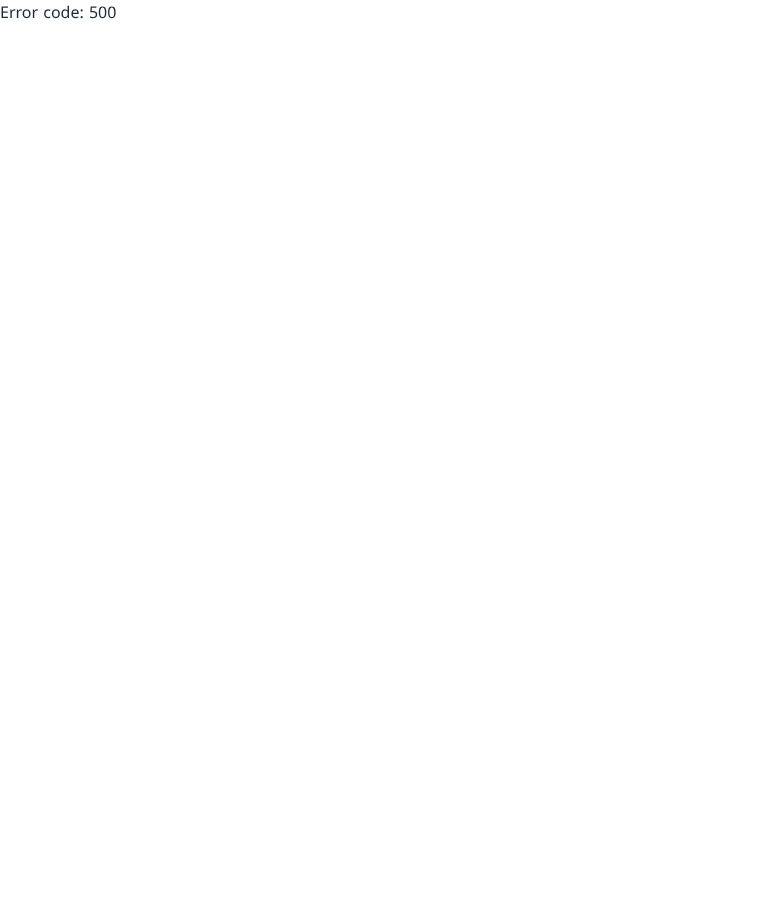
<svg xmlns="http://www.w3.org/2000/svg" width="766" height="914">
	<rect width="100%" height="100%" fill="#FFFFFF" />
	<text x="0" y="18" word-spacing="1" font-family="Noto Sans" font-size="16" fill="#1F2937">Error code: 500</text>
</svg>
